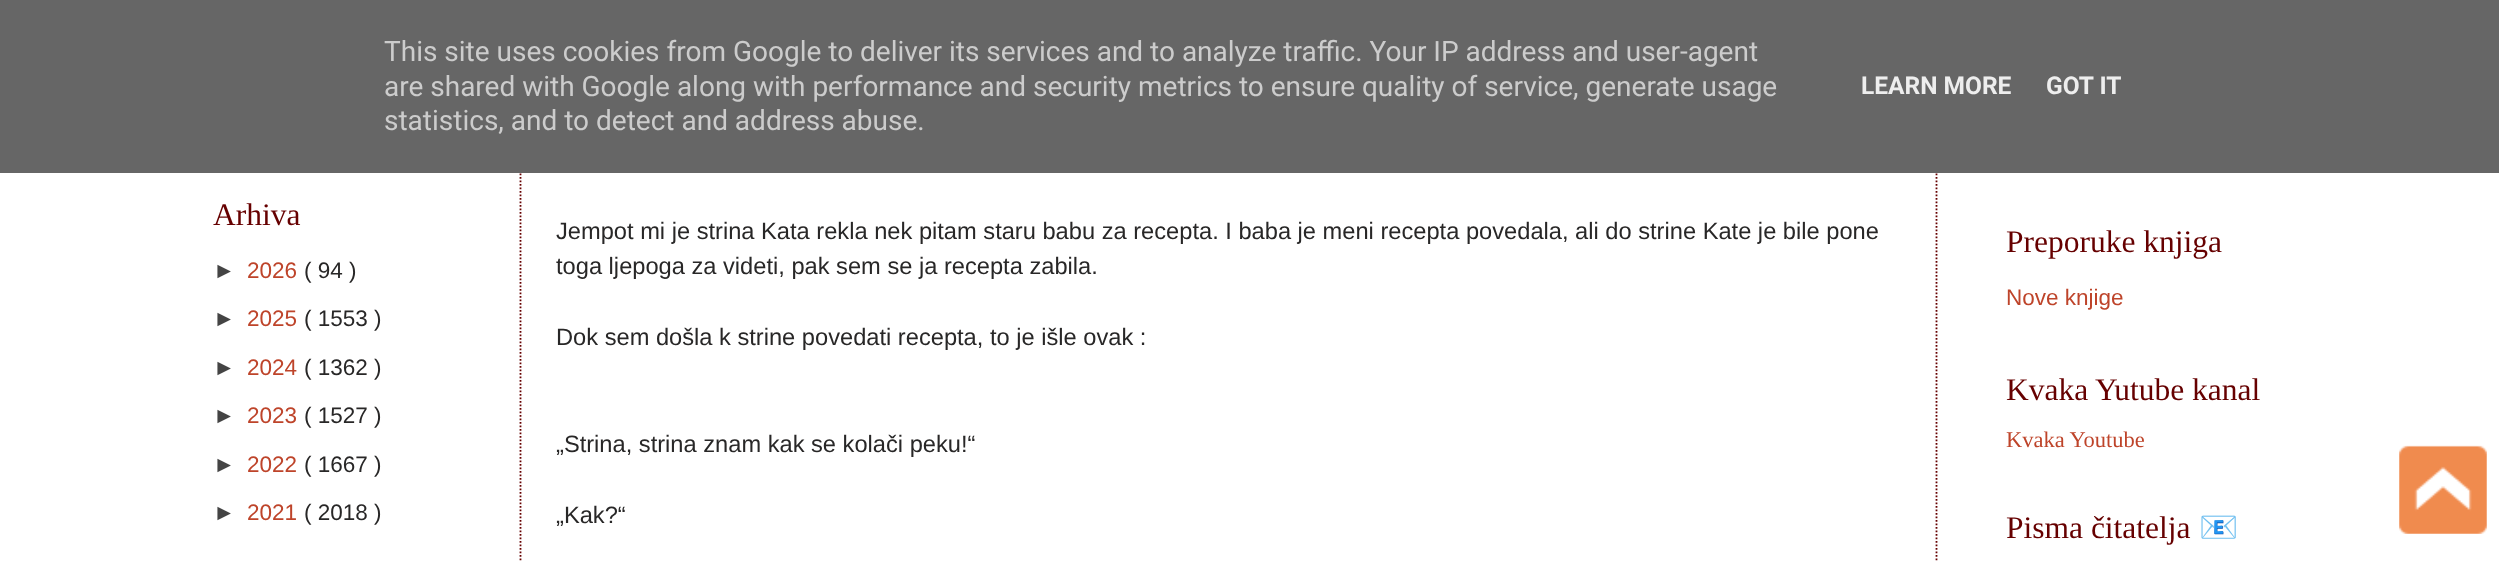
<svg xmlns="http://www.w3.org/2000/svg" width="2499" height="562">
	<rect width="100%" height="100%" fill="#FFFFFF" />
	<path d="M1936.5-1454V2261" fill="none" stroke="#660000" stroke-width="1.8" stroke-dasharray="1.75 1.75" />
	<path d="M520.5-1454V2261" fill="none" stroke="#660000" stroke-width="1.8" stroke-dasharray="1.75 1.75" />
	<rect x="0" y="0" width="2499" height="173" fill="#666666" />
	<g font-family="Roboto" font-size="28" fill="#CCCCCC">
		<text x="384" y="61">This site uses cookies from Google to deliver its services and to analyze traffic. Your IP address and user-agent</text>
		<text x="384" y="96">are shared with Google along with performance and security metrics to ensure quality of service, generate usage</text>
		<text x="384" y="130">statistics, and to detect and address abuse.</text>
	</g>
	<g font-family="Roboto" font-size="24.5" font-weight="700" fill="#EEEEEE">
		<text x="1861" y="94">LEARN MORE</text>
		<text x="2046" y="94">GOT IT</text>
	</g>
	<text x="213" y="225" font-family="Liberation Serif" font-size="31.5" fill="#660000">Arhiva</text>
	<text x="213" y="278" font-family="Liberation Sans" font-size="22.5" fill="#444444">►</text>
	<text x="247" y="278" font-family="Liberation Sans" font-size="22.5" fill="#BE442A">2026</text>
	<text x="304" y="278" font-family="Liberation Sans" font-size="22.5" fill="#282727">( 94 )</text>
	<text x="213" y="326" font-family="Liberation Sans" font-size="22.5" fill="#444444">►</text>
	<text x="247" y="326" font-family="Liberation Sans" font-size="22.5" fill="#BE442A">2025</text>
	<text x="304" y="326" font-family="Liberation Sans" font-size="22.5" fill="#282727">( 1553 )</text>
	<text x="213" y="375" font-family="Liberation Sans" font-size="22.5" fill="#444444">►</text>
	<text x="247" y="375" font-family="Liberation Sans" font-size="22.5" fill="#BE442A">2024</text>
	<text x="304" y="375" font-family="Liberation Sans" font-size="22.5" fill="#282727">( 1362 )</text>
	<text x="213" y="423" font-family="Liberation Sans" font-size="22.5" fill="#444444">►</text>
	<text x="247" y="423" font-family="Liberation Sans" font-size="22.5" fill="#BE442A">2023</text>
	<text x="304" y="423" font-family="Liberation Sans" font-size="22.5" fill="#282727">( 1527 )</text>
	<text x="213" y="472" font-family="Liberation Sans" font-size="22.5" fill="#444444">►</text>
	<text x="247" y="472" font-family="Liberation Sans" font-size="22.5" fill="#BE442A">2022</text>
	<text x="304" y="472" font-family="Liberation Sans" font-size="22.5" fill="#282727">( 1667 )</text>
	<text x="213" y="520" font-family="Liberation Sans" font-size="22.5" fill="#444444">►</text>
	<text x="247" y="520" font-family="Liberation Sans" font-size="22.5" fill="#BE442A">2021</text>
	<text x="304" y="520" font-family="Liberation Sans" font-size="22.5" fill="#282727">( 2018 )</text>
	<g font-family="Liberation Sans" font-size="23.67" fill="#282727">
		<text x="556" y="239">Jempot mi je strina Kata rekla nek pitam staru babu za recepta. I baba je meni recepta povedala, ali do strine Kate je bile pone</text>
		<text x="556" y="274">toga ljepoga za videti, pak sem se ja recepta zabila.</text>
		<text x="556" y="345">Dok sem došla k strine povedati recepta, to je išle ovak :</text>
		<text x="556" y="452">„Strina, strina znam kak se kolači peku!“</text>
		<text x="556" y="523">„Kak?“</text>
	</g>
	<text x="2006" y="252" font-family="Liberation Serif" font-size="31.5" fill="#660000">Preporuke knjiga</text>
	<text x="2006" y="305" font-family="Liberation Sans" font-size="22.5" fill="#BE442A">Nove knjige</text>
	<text x="2006" y="400" font-family="Liberation Serif" font-size="31.5" fill="#660000">Kvaka Yutube kanal</text>
	<text x="2006" y="447" font-family="Liberation Serif" font-size="22.5" fill="#BE442A">Kvaka Youtube</text>
	<text x="2006" y="538" font-family="Liberation Serif" font-size="31.5" fill="#660000">Pisma čitatelja</text>
	<text x="2199" y="538" font-family="Noto Color Emoji" font-size="31.5" fill="#660000">📧</text>
	<image x="2399" y="445" width="88" height="89" href="assets/img1.png" />
</svg>
